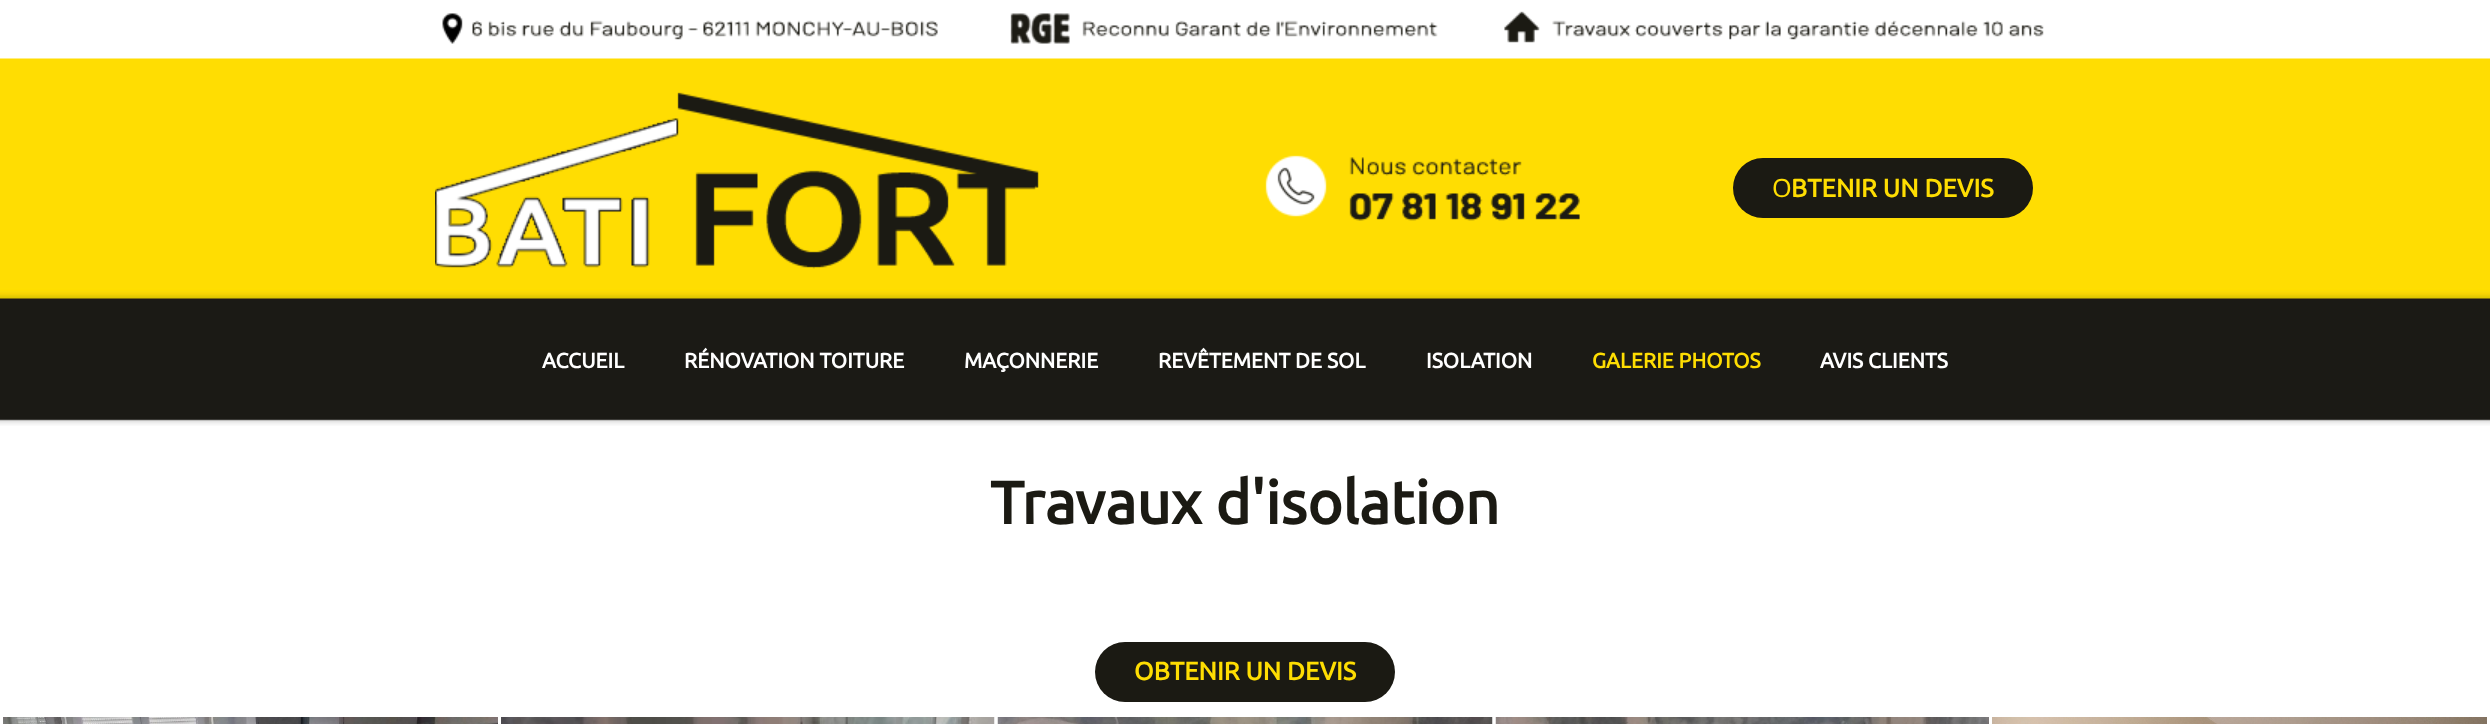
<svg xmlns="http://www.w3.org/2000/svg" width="2490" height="724">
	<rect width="100%" height="100%" fill="#FFFFFF" />
	<image x="0" y="58" width="2490" height="368" href="assets/img1.png" />
	<image x="435" y="11" width="1609" height="258" href="assets/img2.png" />
	<rect x="1733" y="158" width="300" height="60" rx="30" fill="#1B1A13" />
	<text x="1772" y="197" font-family="Noto Sans" font-size="25.25" fill="#FEDD02">O</text>
	<text x="1791" y="197" font-family="Ubuntu" font-size="25.25" font-weight="700" fill="#FEDD02">BTENIR UN DEVIS</text>
	<g font-family="Ubuntu" font-size="21" font-weight="700" fill="#FFFFFF">
		<text x="542" y="368">ACCUEIL</text>
		<text x="684" y="368">RÉNOVATION TOITURE</text>
		<text x="964" y="368">MAÇONNERIE</text>
		<text x="1158" y="368">REVÊTEMENT DE SOL</text>
		<text x="1426" y="368">ISOLATION</text>
	</g>
	<text x="1592" y="368" font-family="Ubuntu" font-size="21" font-weight="700" fill="#FEDD02">GALERIE PHOTOS</text>
	<text x="1820" y="368" font-family="Ubuntu" font-size="21" font-weight="700" fill="#FFFFFF">AVIS CLIENTS</text>
	<text x="990" y="524" font-family="Ubuntu" font-size="60" font-weight="700" fill="#1B1A13">Travaux d'isolation</text>
	<rect x="1095" y="642" width="300" height="60" rx="30" fill="#1B1A13" />
	<text x="1134" y="680" font-family="Ubuntu" font-size="25.25" font-weight="700" fill="#FEDD02">OBTENIR UN DEVIS</text>
	<image x="3" y="717" width="495" height="7" href="assets/img3.png" />
	<image x="501" y="717" width="494" height="7" href="assets/img4.png" />
	<image x="997" y="717" width="496" height="7" href="assets/img5.png" />
	<image x="1495" y="717" width="494" height="7" href="assets/img6.png" />
	<image x="1992" y="717" width="495" height="7" href="assets/img7.png" />
</svg>
